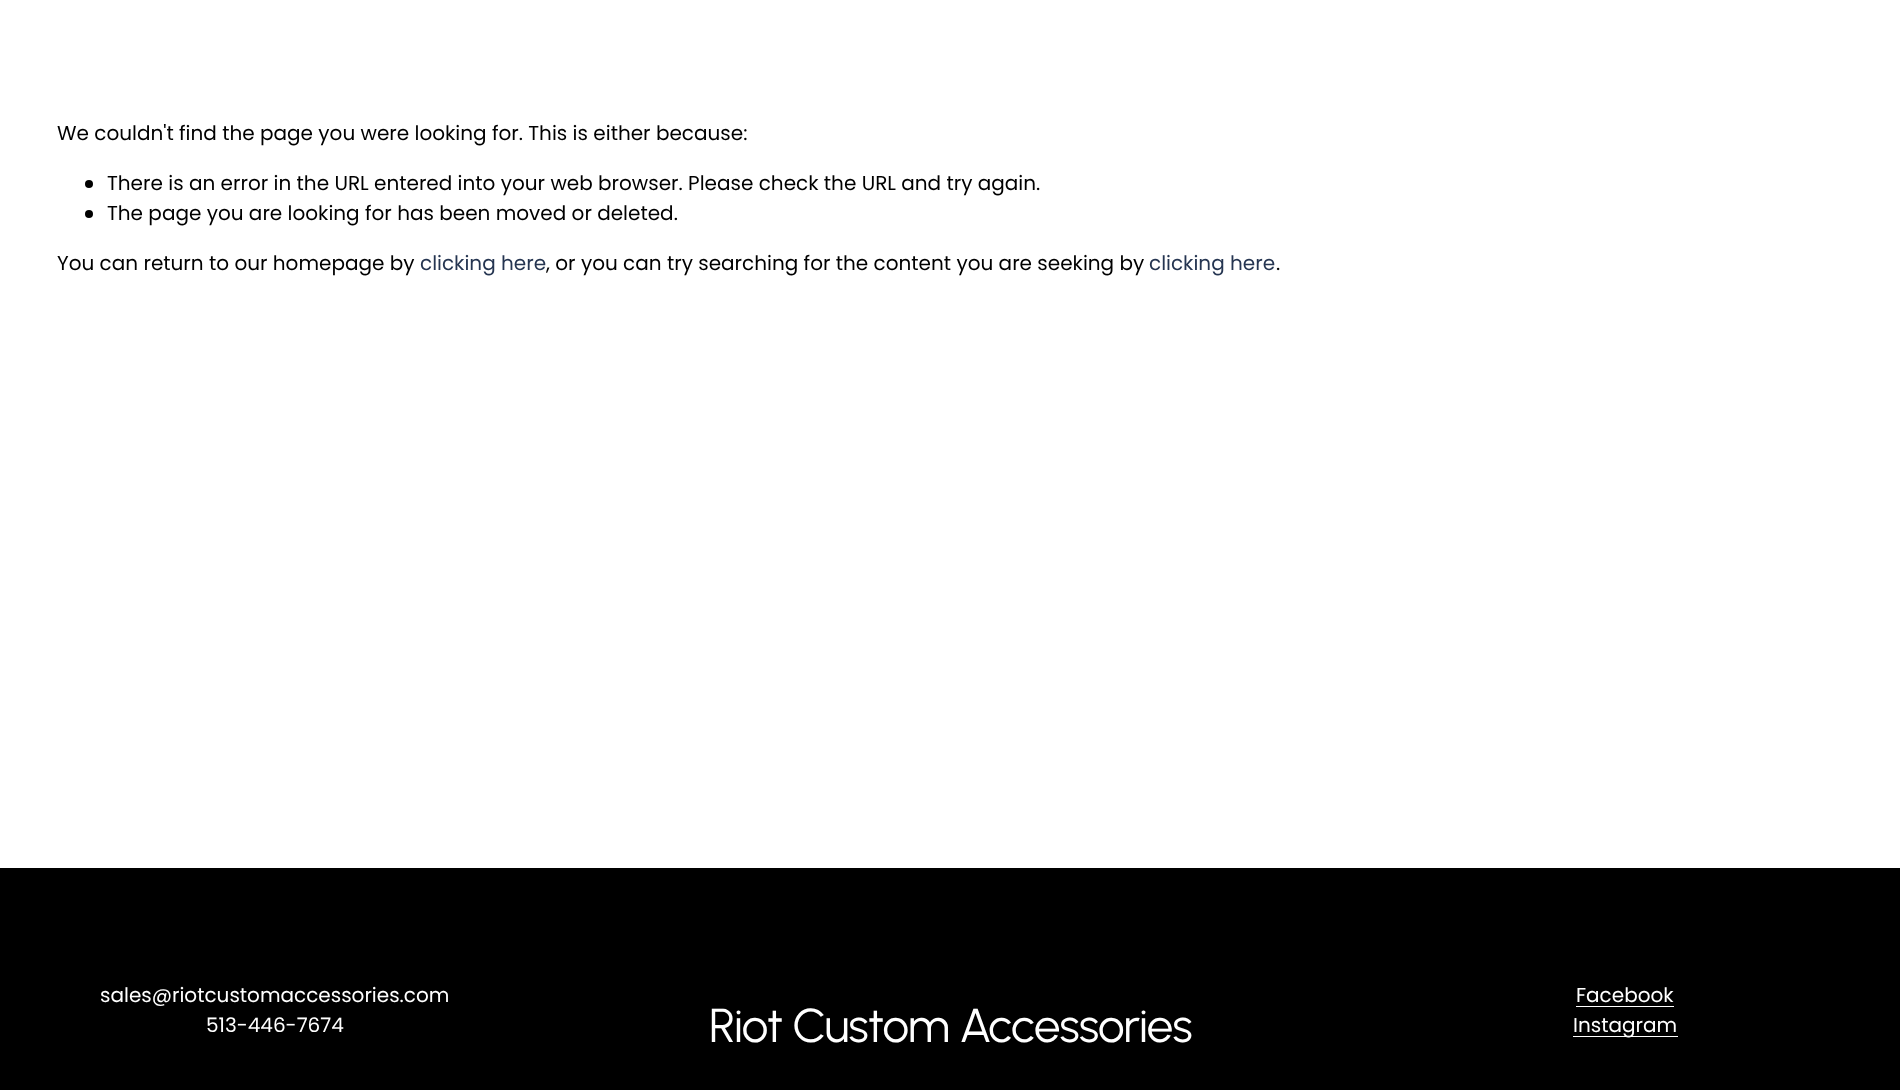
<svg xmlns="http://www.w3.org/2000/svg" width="1900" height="1090">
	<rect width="100%" height="100%" fill="#FFFFFF" />
	<text x="57" y="140" font-family="Poppins" font-size="20" fill="#000000">We couldn't find the page you were looking for. This is either because:</text>
	<circle cx="89" cy="184" r="4" fill="#000000" />
	<text x="107" y="190" font-family="Poppins" font-size="20" fill="#000000">There is an error in the URL entered into your web browser. Please check the URL and try again.</text>
	<circle cx="89" cy="214" r="4" fill="#000000" />
	<g font-family="Poppins" font-size="20" fill="#000000">
		<text x="107" y="220">The page you are looking for has been moved or deleted.</text>
		<text x="57" y="270">You can return to our homepage by</text>
	</g>
	<text x="420" y="270" font-family="Poppins" font-size="20" fill="#253551">clicking here</text>
	<text x="546" y="270" font-family="Poppins" font-size="20" fill="#000000">, or you can try searching for the content you are seeking by</text>
	<text x="1149" y="270" font-family="Poppins" font-size="20" fill="#253551">clicking here</text>
	<text x="1276" y="270" font-family="Poppins" font-size="20" fill="#000000">.</text>
	<rect x="0" y="868" width="1900" height="222" fill="#000000" />
	<g font-family="Poppins" font-size="20" fill="#FFFFFF">
		<text x="100" y="1002">sales@riotcustomaccessories.com</text>
		<text x="206" y="1032">513-446-7674</text>
	</g>
	<text x="709" y="1042" font-family="Urbanist" font-size="47.4" letter-spacing="-0.95" fill="#FFFFFF">Riot Custom Accessories</text>
	<text x="1576" y="1002" font-family="Poppins" font-size="20" fill="#FFFFFF">Facebook</text>
	<rect x="1576" y="1006" width="98" height="1" fill="#FFFFFF" />
	<rect x="1573" y="1036" width="105" height="1" fill="#FFFFFF" />
	<text x="1573" y="1032" font-family="Poppins" font-size="20" fill="#FFFFFF">Instagram</text>
</svg>
